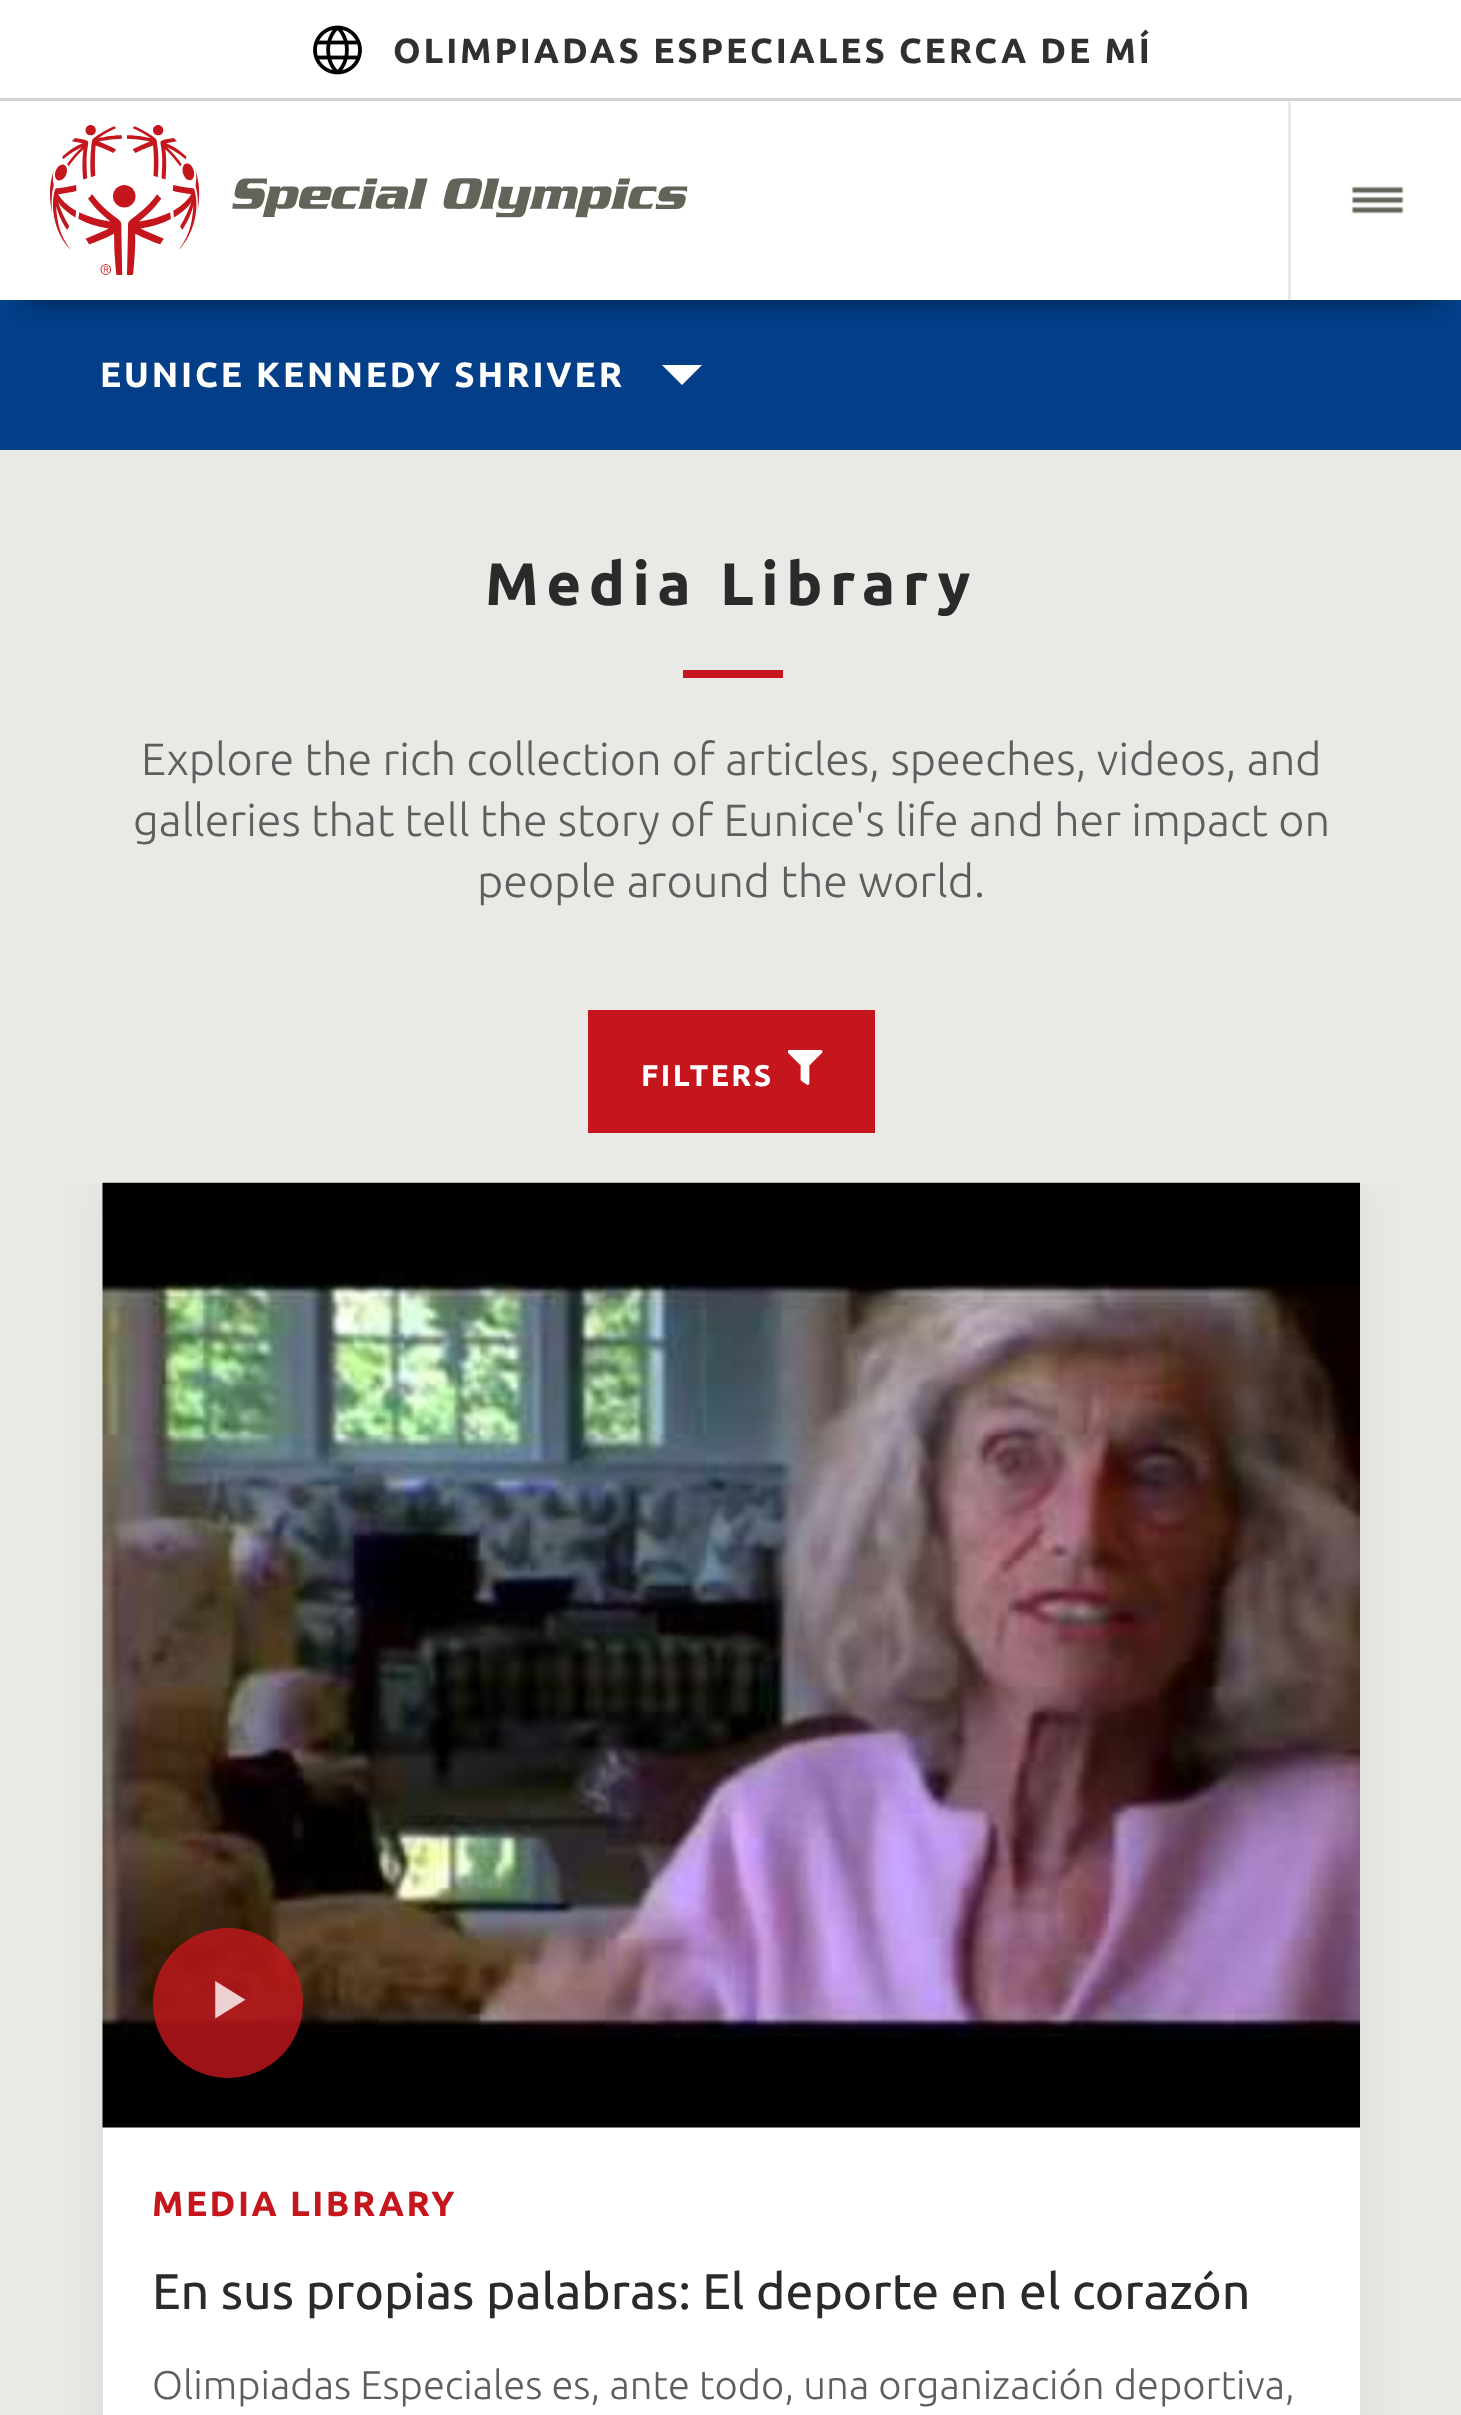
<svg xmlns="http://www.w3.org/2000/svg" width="1461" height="2415">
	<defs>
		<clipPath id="clip1"><rect x="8" y="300" width="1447" height="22" /></clipPath>
		<clipPath id="clip2"><rect x="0" y="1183" width="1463" height="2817" /></clipPath>
	</defs>
	<rect width="100%" height="100%" fill="#FFFFFF" />
	<rect x="0" y="300" width="1461" height="150" fill="#023F88" />
	<g clip-path="url(#clip1)">
		<rect x="25" y="150" width="1413" height="150" fill="#000000" fill-opacity="0.5" filter="blur(12.5px)" />
	</g>
	<rect x="1288" y="100" width="3" height="200" fill="#E9E9E6" />
	<rect x="0" y="98" width="1461" height="3" fill="#D1D3D4" />
	<image x="313" y="25" width="49" height="50" href="assets/img1.png" />
	<text x="393" y="63" font-family="Ubuntu" font-size="35" font-weight="700" letter-spacing="2.9" fill="#303030">OLIMPIADAS ESPECIALES CERCA DE MÍ</text>
	<image x="50" y="125" width="638" height="150" href="assets/img2.png" />
	<image x="1351" y="186" width="53" height="28" href="assets/img3.png" />
	<text x="100" y="387" font-family="Ubuntu" font-size="35" font-weight="700" letter-spacing="2.9" fill="#FFFFFF">EUNICE KENNEDY SHRIVER</text>
	<path d="M662 365H702L682 385Z" fill="#FFFFFF" />
	<rect x="0" y="450" width="1461" height="1965" fill="#E9E9E6" />
	<text x="485" y="605" font-family="Ubuntu" font-size="60" font-weight="700" letter-spacing="7.5" fill="#2A2A2A">Media Library</text>
	<rect x="683" y="670" width="100" height="8" fill="#C4161C" />
	<g font-family="Ubuntu" font-size="45" font-weight="300" fill="#5E5E5E">
		<text x="141" y="775">Explore the rich collection of articles, speeches, videos, and</text>
		<text x="133" y="836">galleries that tell the story of Eunice's life and her impact on</text>
		<text x="477" y="897">people around the world.</text>
	</g>
	<rect x="588" y="1010" width="287" height="123" fill="#C4161C" />
	<text x="641" y="1086" font-family="Ubuntu" font-size="30" font-weight="700" letter-spacing="2.5" fill="#FFFFFF">FILTERS</text>
	<image x="788" y="1050" width="35" height="35" href="assets/img4.png" />
	<g clip-path="url(#clip2)">
		<rect x="103" y="1183" width="1257" height="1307" fill="#000000" fill-opacity="0.06" filter="blur(25px)" />
	</g>
	<rect x="103" y="2127" width="1257" height="288" fill="#FFFFFF" />
	<image x="102" y="1182" width="1258" height="946" href="assets/img5.png" />
	<circle cx="228" cy="2003" r="75" fill="#C4161C" fill-opacity="0.8" />
	<image x="215" y="1981" width="31" height="38" href="assets/img6.png" />
	<text x="152" y="2216" font-family="Ubuntu" font-size="35" font-weight="700" letter-spacing="2.5" fill="#C4161C">MEDIA LIBRARY</text>
	<text x="152" y="2309" font-family="Ubuntu" font-size="50" fill="#2A2A2A">En sus propias palabras: El deporte en el corazón</text>
	<text x="152" y="2399" font-family="Ubuntu" font-size="40" font-weight="300" fill="#5E5E5E">Olimpiadas Especiales es, ante todo, una organización deportiva,</text>
</svg>
